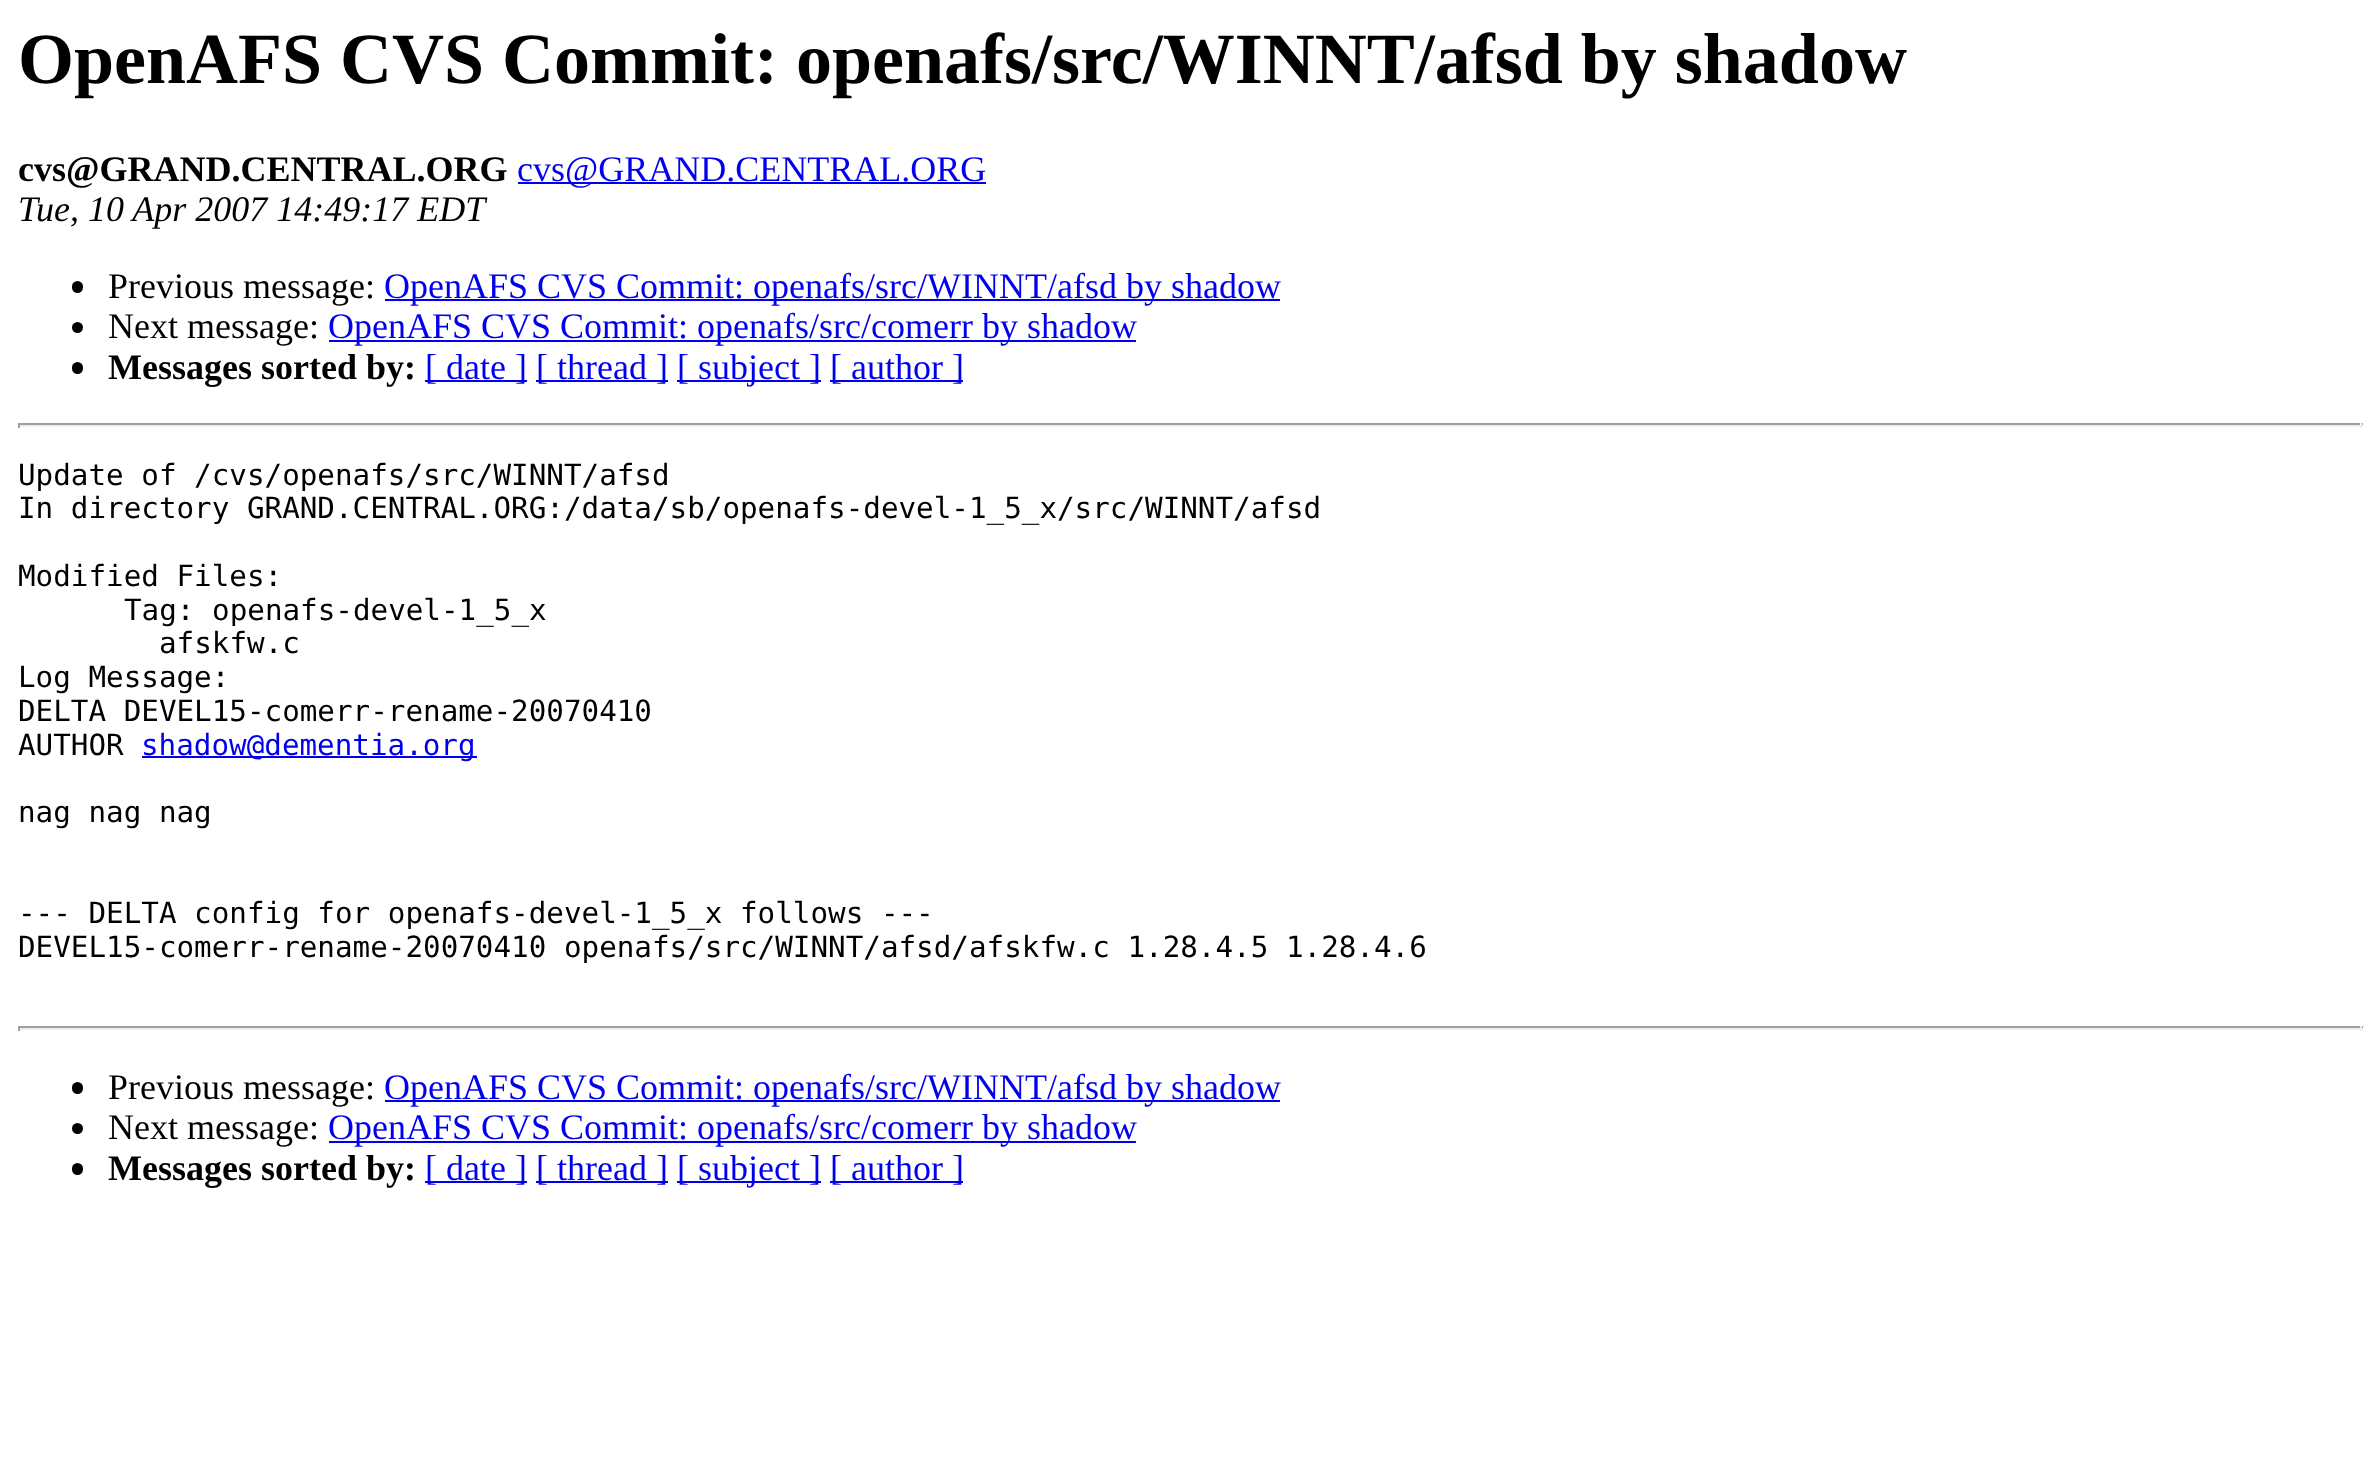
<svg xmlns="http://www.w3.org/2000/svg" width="2379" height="1467">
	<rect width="100%" height="100%" fill="#FFFFFF" />
	<text x="18" y="83" font-family="Liberation Serif" font-size="72" font-weight="700" fill="#000000">OpenAFS CVS Commit: openafs/src/WINNT/afsd by shadow</text>
	<text x="18" y="181" font-family="Liberation Serif" font-size="36" font-weight="700" fill="#000000">cvs@GRAND.CENTRAL.ORG</text>
	<rect x="518" y="182" width="468" height="2" fill="#0000EE" />
	<text x="517" y="181" font-family="Liberation Serif" font-size="36" fill="#0000EE">cvs@GRAND.CENTRAL.ORG</text>
	<text x="18" y="221" font-family="Liberation Serif" font-size="36" font-style="italic" fill="#000000">Tue, 10 Apr 2007 14:49:17 EDT</text>
	<rect x="72" y="281" width="11" height="12" rx="5.5" fill="#000000" />
	<text x="108" y="298" font-family="Liberation Serif" font-size="36" fill="#000000">Previous message:</text>
	<rect x="385" y="299" width="895" height="2" fill="#0000EE" />
	<text x="384" y="298" font-family="Liberation Serif" font-size="36" fill="#0000EE">OpenAFS CVS Commit: openafs/src/WINNT/afsd by shadow</text>
	<circle cx="77.5" cy="327.5" r="5.5" fill="#000000" />
	<text x="108" y="338" font-family="Liberation Serif" font-size="36" fill="#000000">Next message:</text>
	<rect x="329" y="340" width="807" height="2" fill="#0000EE" />
	<text x="328" y="338" font-family="Liberation Serif" font-size="36" fill="#0000EE">OpenAFS CVS Commit: openafs/src/comerr by shadow</text>
	<rect x="72" y="362" width="11" height="12" rx="5.5" fill="#000000" />
	<text x="108" y="379" font-family="Liberation Serif" font-size="36" font-weight="700" fill="#000000">Messages sorted by:</text>
	<rect x="425" y="380" width="102" height="2" fill="#0000EE" />
	<text x="425" y="379" font-family="Liberation Serif" font-size="36" fill="#0000EE">[ date ]</text>
	<rect x="536" y="380" width="132" height="2" fill="#0000EE" />
	<text x="536" y="379" font-family="Liberation Serif" font-size="36" fill="#0000EE">[ thread ]</text>
	<rect x="677" y="380" width="144" height="2" fill="#0000EE" />
	<text x="677" y="379" font-family="Liberation Serif" font-size="36" fill="#0000EE">[ subject ]</text>
	<rect x="830" y="380" width="133" height="2" fill="#0000EE" />
	<text x="830" y="379" font-family="Liberation Serif" font-size="36" fill="#0000EE">[ author ]</text>
	<rect x="18" y="423" width="2345" height="2" fill="#9F9F9F" />
	<rect x="2360" y="423" width="2" height="5" fill="#EEEEEE" />
	<rect x="18" y="425" width="2345" height="2" fill="#EEEEEE" />
	<rect x="18" y="423" width="2" height="5" fill="#9F9F9F" />
	<g font-family="DejaVu Sans Mono" font-size="29.25" fill="#000000">
		<text x="18" y="485">Update of /cvs/openafs/src/WINNT/afsd</text>
		<text x="18" y="518">In directory GRAND.CENTRAL.ORG:/data/sb/openafs-devel-1_5_x/src/WINNT/afsd</text>
		<text x="18" y="586">Modified Files:</text>
		<text x="124" y="620">Tag: openafs-devel-1_5_x</text>
		<text x="159" y="653">afskfw.c</text>
		<text x="18" y="687">Log Message:</text>
		<text x="18" y="721">DELTA DEVEL15-comerr-rename-20070410</text>
		<text x="18" y="755">AUTHOR</text>
	</g>
	<rect x="142" y="756" width="335" height="2" fill="#0000EE" />
	<text x="141" y="755" font-family="DejaVu Sans Mono" font-size="29.25" fill="#0000EE">shadow@dementia.org</text>
	<g font-family="DejaVu Sans Mono" font-size="29.25" fill="#000000">
		<text x="18" y="822">nag nag nag</text>
		<text x="18" y="923">--- DELTA config for openafs-devel-1_5_x follows ---</text>
		<text x="18" y="957">DEVEL15-comerr-rename-20070410 openafs/src/WINNT/afsd/afskfw.c 1.28.4.5 1.28.4.6</text>
	</g>
	<rect x="18" y="1026" width="2345" height="2" fill="#9F9F9F" />
	<rect x="2360" y="1026" width="2" height="5" fill="#EEEEEE" />
	<rect x="18" y="1028" width="2345" height="2" fill="#EEEEEE" />
	<rect x="18" y="1026" width="2" height="5" fill="#9F9F9F" />
	<rect x="72" y="1082" width="11" height="12" rx="5.5" fill="#000000" />
	<text x="108" y="1099" font-family="Liberation Serif" font-size="36" fill="#000000">Previous message:</text>
	<rect x="385" y="1100" width="895" height="2" fill="#0000EE" />
	<text x="384" y="1099" font-family="Liberation Serif" font-size="36" fill="#0000EE">OpenAFS CVS Commit: openafs/src/WINNT/afsd by shadow</text>
	<circle cx="77.5" cy="1128.5" r="5.5" fill="#000000" />
	<text x="108" y="1139" font-family="Liberation Serif" font-size="36" fill="#000000">Next message:</text>
	<rect x="329" y="1141" width="807" height="2" fill="#0000EE" />
	<text x="328" y="1139" font-family="Liberation Serif" font-size="36" fill="#0000EE">OpenAFS CVS Commit: openafs/src/comerr by shadow</text>
	<rect x="72" y="1163" width="11" height="12" rx="5.5" fill="#000000" />
	<text x="108" y="1180" font-family="Liberation Serif" font-size="36" font-weight="700" fill="#000000">Messages sorted by:</text>
	<rect x="425" y="1181" width="102" height="2" fill="#0000EE" />
	<text x="425" y="1180" font-family="Liberation Serif" font-size="36" fill="#0000EE">[ date ]</text>
	<rect x="536" y="1181" width="132" height="2" fill="#0000EE" />
	<text x="536" y="1180" font-family="Liberation Serif" font-size="36" fill="#0000EE">[ thread ]</text>
	<rect x="677" y="1181" width="144" height="2" fill="#0000EE" />
	<text x="677" y="1180" font-family="Liberation Serif" font-size="36" fill="#0000EE">[ subject ]</text>
	<rect x="830" y="1181" width="133" height="2" fill="#0000EE" />
	<text x="830" y="1180" font-family="Liberation Serif" font-size="36" fill="#0000EE">[ author ]</text>
</svg>
